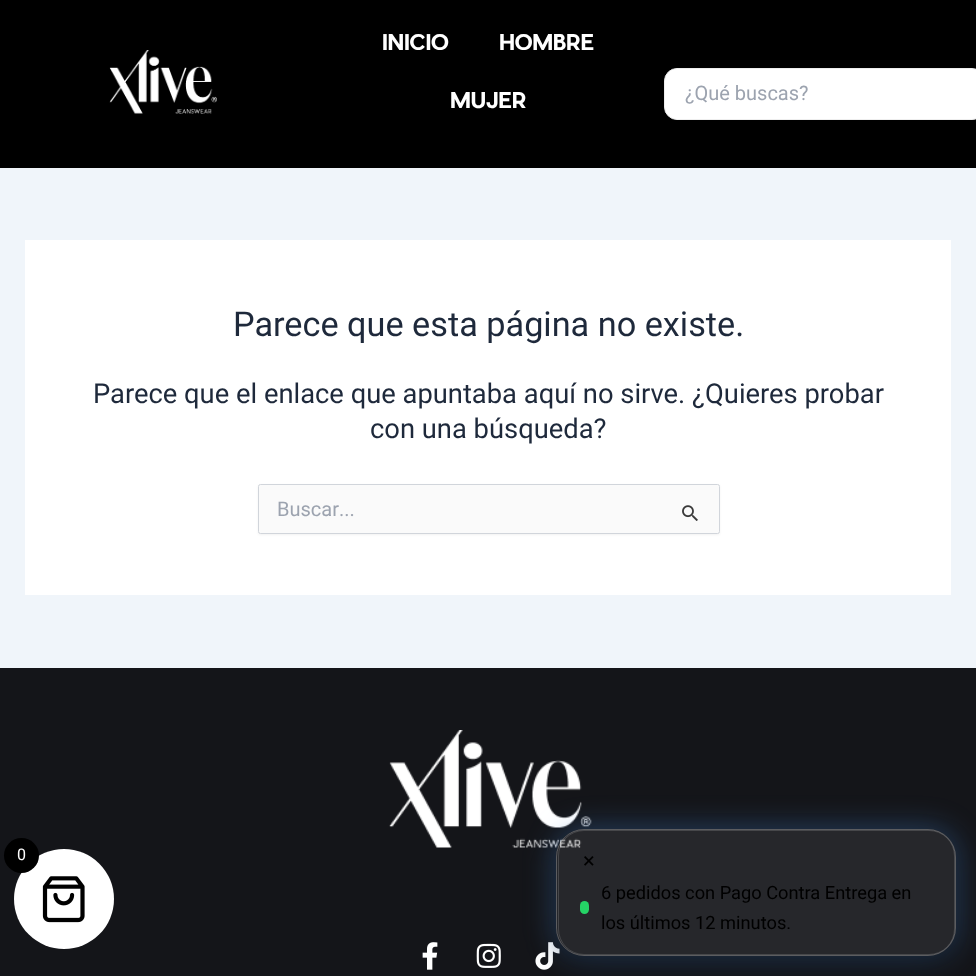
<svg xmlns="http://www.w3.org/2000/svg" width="976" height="976">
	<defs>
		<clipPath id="clip1"><path d="M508 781H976V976H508ZM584 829H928C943.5 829 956 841.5 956 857V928C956 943.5 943.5 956 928 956H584C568.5 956 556 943.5 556 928V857C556 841.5 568.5 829 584 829Z" clip-rule="evenodd" /></clipPath>
		<clipPath id="clip2"><path d="M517 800H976V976H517ZM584 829H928C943.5 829 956 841.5 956 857V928C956 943.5 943.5 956 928 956H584C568.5 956 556 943.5 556 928V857C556 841.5 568.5 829 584 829Z" clip-rule="evenodd" /></clipPath>
	</defs>
	<rect width="100%" height="100%" fill="#F0F5FA" />
	<rect x="0" y="0" width="976" height="168" fill="#000000" />
	<image x="109" y="50" width="108" height="64" href="assets/img1.png" />
	<g font-family="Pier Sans" font-size="21.25" font-weight="700" fill="#FFFFFF">
		<text x="382" y="50">INICIO</text>
		<text x="499" y="50">HOMBRE</text>
		<text x="450" y="108">MUJER</text>
	</g>
	<rect x="664.5" y="68.5" width="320" height="51" rx="12.5" fill="#FFFFFF" stroke="#EEEEEE" />
	<text x="685" y="100" font-family="Roboto" font-size="20" fill="#9CA3AF">¿Qué buscas?</text>
	<rect x="25" y="240" width="926" height="355" fill="#FFFFFF" />
	<text x="233" y="336" font-family="Roboto" font-size="34.25" fill="#1E293B">Parece que esta página no existe.</text>
	<g font-family="Roboto" font-size="27.35" fill="#1E293B">
		<text x="93" y="403">Parece que el enlace que apuntaba aquí no sirve. ¿Quieres probar</text>
		<text x="370" y="438">con una búsqueda?</text>
	</g>
	<rect x="258" y="485" width="462" height="50" rx="2.5" fill="#000000" fill-opacity="0.05" filter="blur(1px)" />
	<rect x="258.5" y="484.5" width="461" height="49" rx="2" fill="#FAFAFA" stroke="#D1D5DB" />
	<text x="277" y="516" font-family="Roboto" font-size="20" fill="#9CA3AF">Buscar...</text>
	<image x="682" y="505" width="16" height="16" href="assets/img2.png" />
	<rect x="0" y="668" width="976" height="308" fill="#141519" />
	<image x="389" y="730" width="203" height="118" href="assets/img3.png" />
	<image x="422" y="942" width="16" height="28" href="assets/img4.png" />
	<image x="476" y="943" width="25" height="25" href="assets/img5.png" />
	<image x="535" y="942" width="25" height="28" href="assets/img6.png" />
	<circle cx="64" cy="899" r="50" fill="#FFFFFF" />
	<circle cx="21.5" cy="855.5" r="17.5" fill="#000000" />
	<text x="17" y="860" font-family="Roboto" font-size="16" fill="#FFFFFF">0</text>
	<image x="42" y="876" width="43" height="47" href="assets/img7.png" />
	<g clip-path="url(#clip1)">
		<rect x="556" y="829" width="400" height="127" rx="28" fill="#50A0FF" fill-opacity="0.35" filter="blur(15.5px)" />
	</g>
	<g clip-path="url(#clip2)">
		<rect x="556" y="839" width="400" height="127" rx="28" fill="#000000" fill-opacity="0.25" filter="blur(12.5px)" />
	</g>
	<rect x="556" y="829" width="400" height="127" rx="28" fill="#FFFFFF" fill-opacity="0.08" />
	<rect x="558.5" y="830.5" width="396" height="124" rx="25.5" fill="none" stroke="#FFFFFF" stroke-opacity="0.15" />
	<rect x="556.5" y="829.5" width="399" height="126" rx="27.5" fill="none" stroke="#FFFFFF" stroke-opacity="0.25" />
	<text x="583" y="868" font-family="Roboto" font-size="22" fill="#000000">×</text>
	<rect x="580" y="901" width="9" height="13" rx="4.5" fill="#25D366" />
	<g font-family="Roboto" font-size="18.25" fill="#000000">
		<text x="601" y="899">6 pedidos con Pago Contra Entrega en</text>
		<text x="601" y="929">los últimos 12 minutos.</text>
	</g>
</svg>
